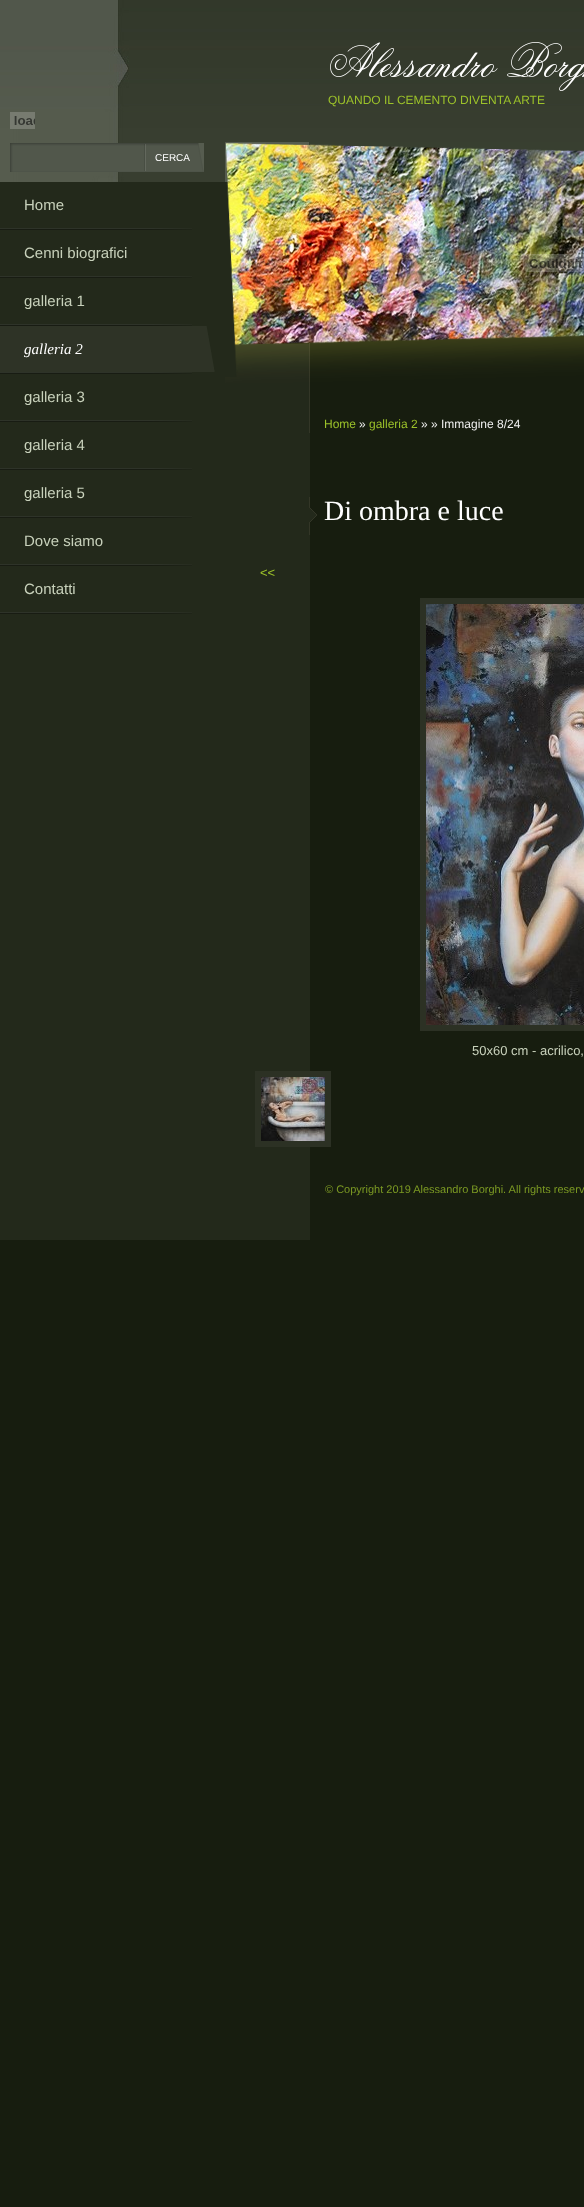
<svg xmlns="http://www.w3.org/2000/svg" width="584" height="2207">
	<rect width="100%" height="100%" fill="#171D0F" />
	<image x="129" y="0" width="455" height="182" href="assets/img1.png" />
	<image x="0" y="0" width="129" height="182" href="assets/img2.png" />
	<image x="330" y="42" width="254" height="49" href="assets/img3.png" />
	<text x="328" y="104" font-family="Liberation Sans" font-size="12" fill="#9CC22A">QUANDO IL CEMENTO DIVENTA ARTE</text>
	<image x="225" y="143" width="359" height="203" href="assets/img4.png" />
	<image x="523" y="254" width="61" height="18" href="assets/img6.png" />
	<image x="225" y="301" width="359" height="82" href="assets/img7.png" />
	<image x="225" y="142" width="359" height="235" href="assets/img5.png" />
	<image x="10" y="143" width="194" height="29" href="assets/img8.png" />
	<text x="155" y="161" font-family="Liberation Sans" font-size="10" fill="#FFFFFF">CERCA</text>
	<rect x="0" y="182" width="225" height="995" fill="#23291B" />
	<image x="10" y="112" width="25" height="17" href="assets/img9.png" />
	<image x="0" y="228" width="192" height="2" href="assets/img10.png" />
	<text x="24" y="210" font-family="Liberation Sans" font-size="15" fill="#C8D1BB">Home</text>
	<image x="0" y="276" width="192" height="2" href="assets/img10.png" />
	<text x="24" y="258" font-family="Liberation Sans" font-size="15" fill="#C8D1BB">Cenni biografici</text>
	<image x="0" y="324" width="192" height="2" href="assets/img10.png" />
	<text x="24" y="306" font-family="Liberation Sans" font-size="15" fill="#C8D1BB">galleria 1</text>
	<image x="0" y="372" width="192" height="2" href="assets/img10.png" />
	<image x="0" y="326" width="215" height="46" href="assets/img11.png" />
	<text x="24" y="354" font-family="Liberation Serif" font-size="15" font-style="italic" fill="#FFFFFF">galleria 2</text>
	<image x="0" y="420" width="192" height="2" href="assets/img10.png" />
	<text x="24" y="402" font-family="Liberation Sans" font-size="15" fill="#C8D1BB">galleria 3</text>
	<image x="0" y="468" width="192" height="2" href="assets/img10.png" />
	<text x="24" y="450" font-family="Liberation Sans" font-size="15" fill="#C8D1BB">galleria 4</text>
	<image x="0" y="516" width="192" height="2" href="assets/img10.png" />
	<text x="24" y="498" font-family="Liberation Sans" font-size="15" fill="#C8D1BB">galleria 5</text>
	<image x="0" y="564" width="192" height="2" href="assets/img10.png" />
	<text x="24" y="546" font-family="Liberation Sans" font-size="15" fill="#C8D1BB">Dove siamo</text>
	<image x="0" y="612" width="192" height="2" href="assets/img10.png" />
	<text x="24" y="594" font-family="Liberation Sans" font-size="15" fill="#C8D1BB">Contatti</text>
	<rect x="225" y="383" width="85" height="794" fill="#23291B" />
	<rect x="309" y="383" width="1" height="50" fill="#333627" />
	<text x="324" y="428" font-family="Liberation Sans" font-size="12" fill="#9CC22A">Home</text>
	<text x="359" y="428" font-family="Liberation Sans" font-size="12" fill="#EEEEEE">»</text>
	<text x="369" y="428" font-family="Liberation Sans" font-size="12" fill="#9CC22A">galleria 2</text>
	<text x="421" y="428" font-family="Liberation Sans" font-size="12" fill="#EEEEEE">» » Immagine 8/24</text>
	<image x="309" y="497" width="8" height="38" href="assets/img12.png" />
	<text x="324" y="520" font-family="Liberation Serif" font-size="28" fill="#FFFFFF">Di ombra e luce</text>
	<text x="260" y="577" font-family="Liberation Sans" font-size="13" fill="#9CC22A">&lt;&lt;</text>
	<rect x="420" y="598" width="164" height="433" fill="#2C3124" />
	<image x="426" y="604" width="158" height="421" href="assets/img13.png" />
	<text x="472" y="1055" font-family="Liberation Sans" font-size="13" fill="#C8D1BB">50x60 cm - acrilico,</text>
	<rect x="255" y="1071" width="76" height="76" fill="#2C3124" />
	<image x="261" y="1077" width="64" height="64" href="assets/img14.png" />
	<rect x="0" y="1177" width="310" height="63" fill="#23291B" />
	<text x="325" y="1193" font-family="Liberation Sans" font-size="11" fill="#7B9923">© Copyright 2019 Alessandro Borghi. All rights reserv</text>
</svg>
